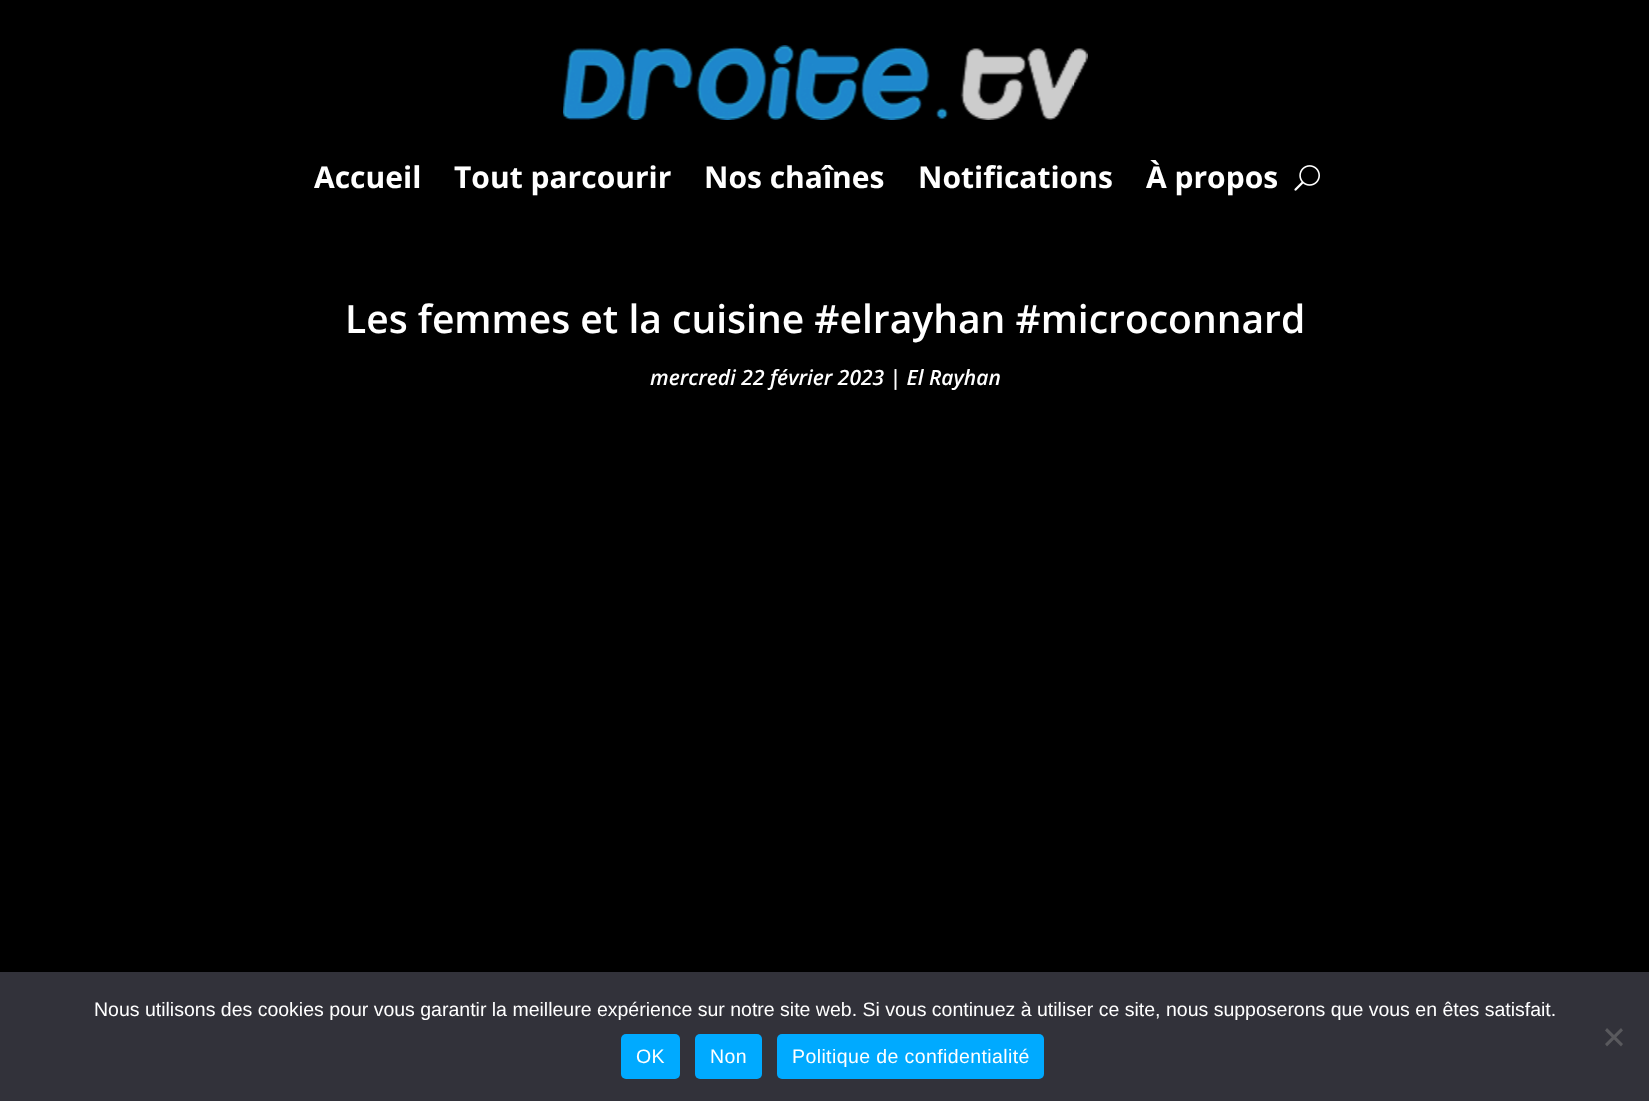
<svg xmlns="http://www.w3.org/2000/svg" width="1649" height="1101">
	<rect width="100%" height="100%" fill="#000000" />
	<image x="563" y="45" width="525" height="75" href="assets/img1.png" />
	<g font-family="Open Sans" font-size="30" font-weight="700" fill="#FFFFFF">
		<text x="314" y="188">Accueil</text>
		<text x="454" y="188">Tout parcourir</text>
		<text x="704" y="188">Nos chaînes</text>
		<text x="918" y="188">Notifications</text>
		<text x="1146" y="188">À propos</text>
	</g>
	<image x="1294" y="165" width="26" height="26" href="assets/img2.png" />
	<text x="345" y="333" font-family="Open Sans" font-size="39" font-weight="600" fill="#FFFFFF">Les femmes et la cuisine #elrayhan #microconnard</text>
	<text x="650" y="385" font-family="Open Sans" font-size="21" font-weight="600" font-style="italic" fill="#FFFFFF">mercredi 22 février 2023 | El Rayhan</text>
	<rect x="0" y="972" width="1649" height="129" fill="#32323A" />
	<text x="94" y="1016" font-family="Liberation Sans" font-size="19.5" fill="#FFFFFF">Nous utilisons des cookies pour vous garantir la meilleure expérience sur notre site web. Si vous continuez à utiliser ce site, nous supposerons que vous en êtes satisfait.</text>
	<path d="M1621 1028L1623 1030.5L1607 1046.5L1605 1044Z" fill="#59595D" />
	<path d="M1605 1030.5L1607 1028L1623 1044L1621 1046.5Z" fill="#59595D" />
	<rect x="621" y="1034" width="59" height="45" rx="5" fill="#00AAFF" />
	<text x="636" y="1063" font-family="Liberation Sans" font-size="19.5" letter-spacing="0.4" fill="#FFFFFF">OK</text>
	<rect x="695" y="1034" width="67" height="45" rx="5" fill="#00AAFF" />
	<text x="710" y="1063" font-family="Liberation Sans" font-size="19.5" letter-spacing="0.4" fill="#FFFFFF">Non</text>
	<rect x="777" y="1034" width="267" height="45" rx="5" fill="#00AAFF" />
	<text x="792" y="1063" font-family="Liberation Sans" font-size="19.5" letter-spacing="0.4" fill="#FFFFFF">Politique de confidentialité</text>
</svg>
